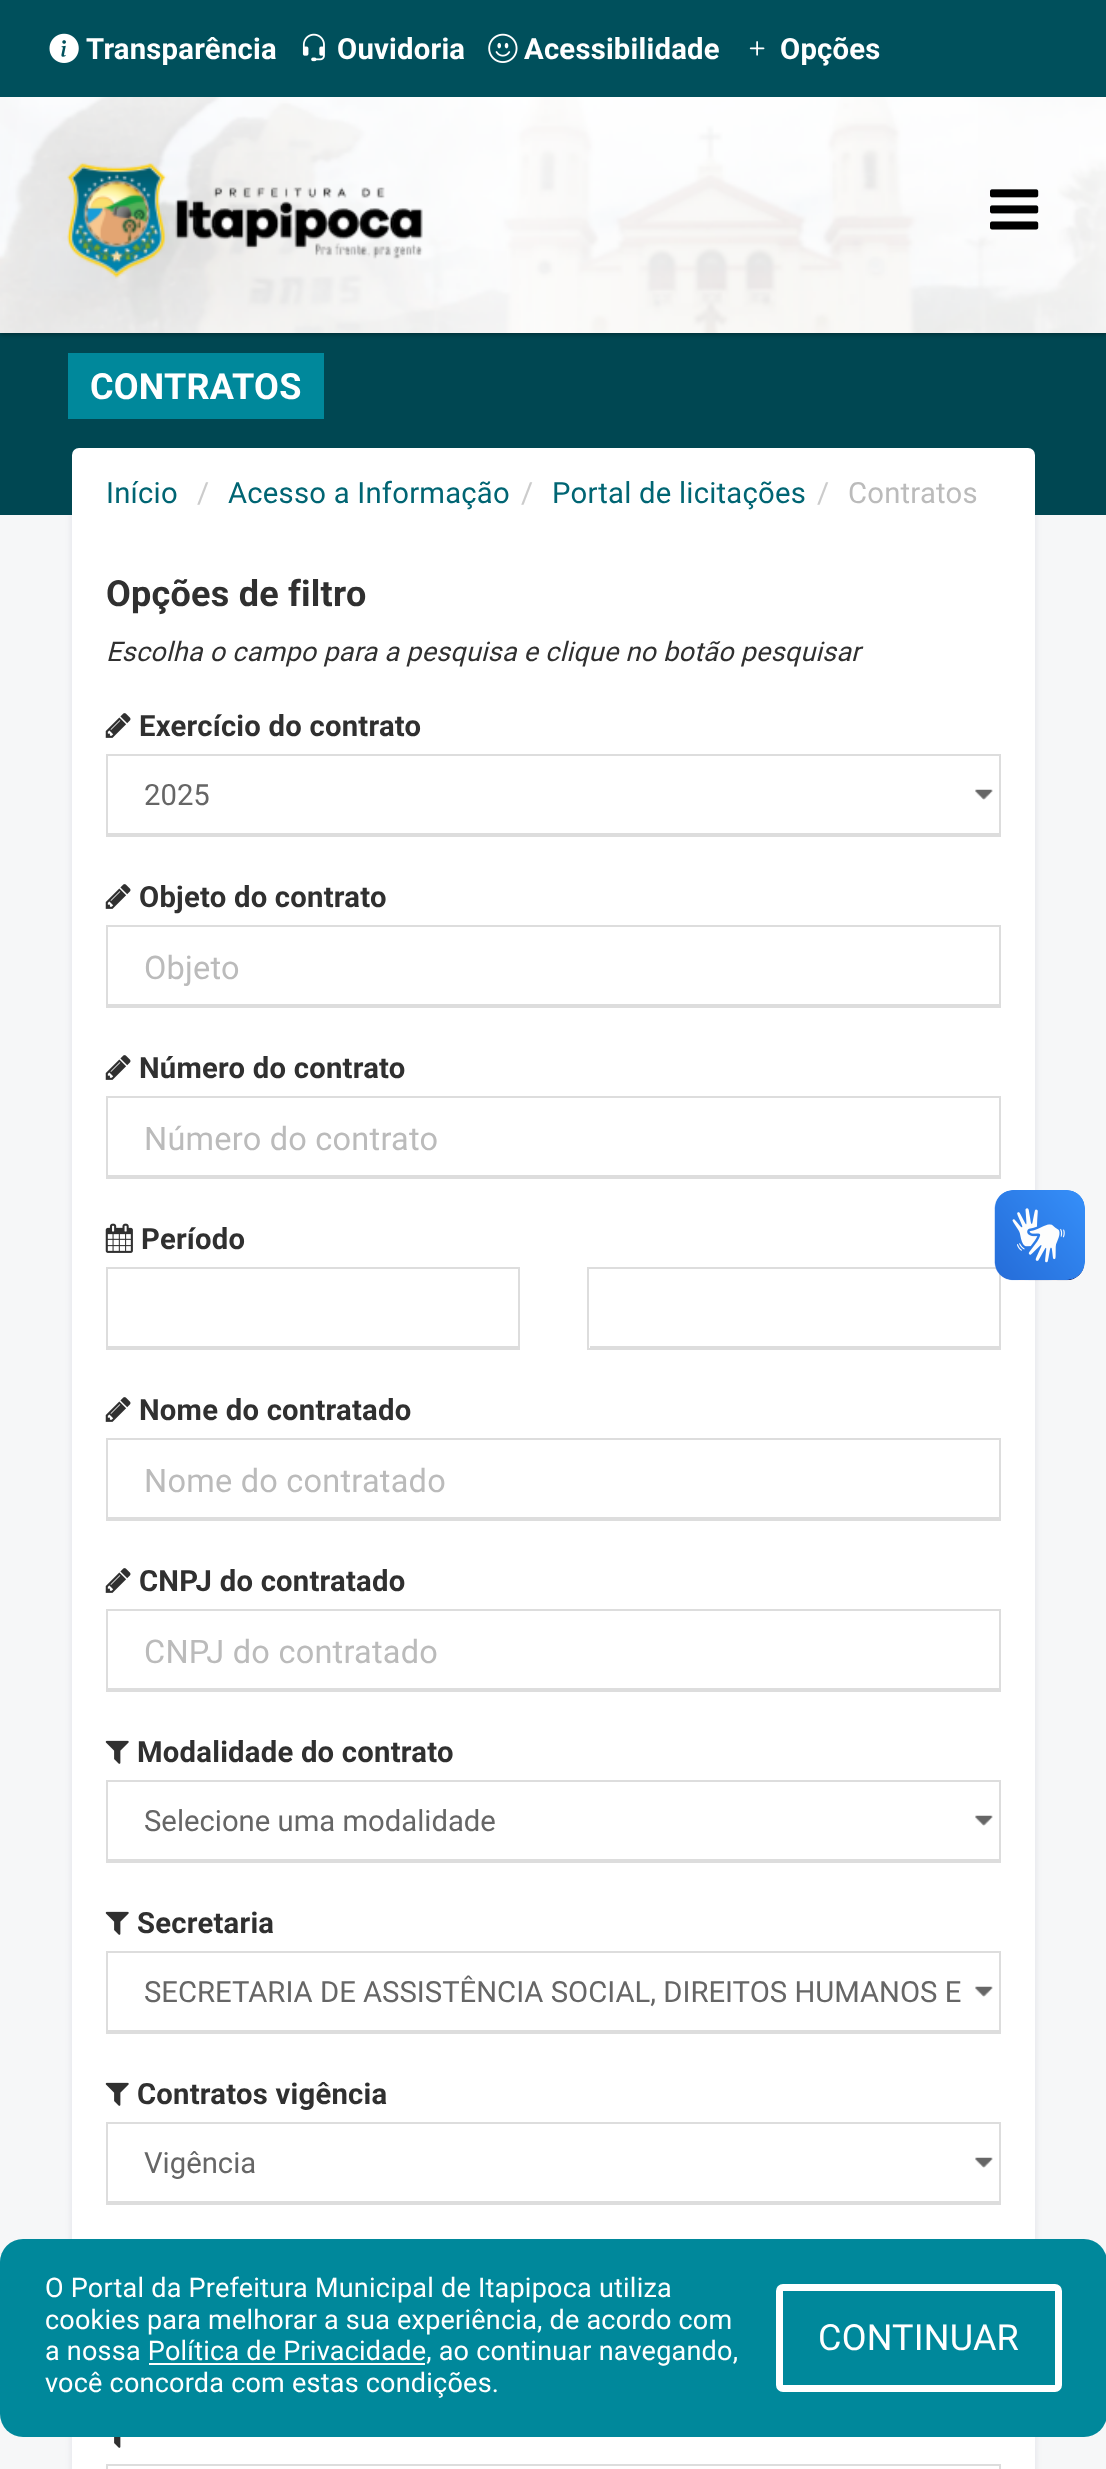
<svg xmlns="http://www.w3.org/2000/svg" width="1106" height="2469">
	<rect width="100%" height="100%" fill="#F6F7F8" />
	<rect x="72" y="450" width="963" height="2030" fill="#030047" fill-opacity="0.09" filter="blur(3.5px)" />
	<rect x="0" y="333" width="1106" height="182" fill="#004752" />
	<rect x="0" y="2" width="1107" height="333" fill="#000000" fill-opacity="0.3" filter="blur(2px)" />
	<image x="0" y="97" width="1106" height="236" href="assets/img1.png" />
	<rect x="0" y="0" width="1106" height="97" fill="#00505C" />
	<image x="49" y="33" width="30" height="30" href="assets/img2.png" />
	<text x="86" y="59" font-family="Roboto" font-size="29.25" font-weight="700" letter-spacing="0.23" fill="#FFFFFF">Transparência</text>
	<image x="302" y="33" width="23" height="29" href="assets/img3.png" />
	<text x="337" y="59" font-family="Roboto" font-size="29.25" font-weight="700" letter-spacing="0.23" fill="#FFFFFF">Ouvidoria</text>
	<image x="488" y="33" width="30" height="30" href="assets/img4.png" />
	<text x="524" y="59" font-family="Roboto" font-size="29.25" font-weight="700" letter-spacing="0.23" fill="#FFFFFF">Acessibilidade</text>
	<image x="749" y="41" width="16" height="15" href="assets/img5.png" />
	<text x="780" y="59" font-family="Roboto" font-size="29.25" font-weight="700" letter-spacing="0.23" fill="#FFFFFF">Opções</text>
	<image x="67" y="162" width="356" height="117" href="assets/img6.png" />
	<image x="990" y="189" width="49" height="41" href="assets/img7.png" />
	<rect x="68" y="353" width="256" height="66" fill="#00889B" />
	<text x="90" y="399" font-family="Roboto" font-size="36" font-weight="700" letter-spacing="0.23" fill="#FFFFFF">CONTRATOS</text>
	<rect x="72" y="531" width="963" height="1938" fill="#FFFFFF" />
	<rect x="72" y="448" width="963" height="90" rx="7" fill="#FFFFFF" />
	<text x="106" y="503" font-family="Roboto" font-size="29.25" letter-spacing="0.23" fill="#006573">Início</text>
	<text x="197" y="503" font-family="Roboto" font-size="29.25" letter-spacing="0.23" fill="#CCCCCC">/</text>
	<text x="228" y="503" font-family="Roboto" font-size="29.25" letter-spacing="0.23" fill="#006573">Acesso a Informação</text>
	<text x="521" y="503" font-family="Roboto" font-size="29.25" letter-spacing="0.23" fill="#CCCCCC">/</text>
	<text x="552" y="503" font-family="Roboto" font-size="29.25" letter-spacing="0.23" fill="#006573">Portal de licitações</text>
	<text x="817" y="503" font-family="Roboto" font-size="29.25" letter-spacing="0.23" fill="#CCCCCC">/</text>
	<text x="848" y="503" font-family="Roboto" font-size="29.25" letter-spacing="0.23" fill="#BBBBBB">Contratos</text>
	<text x="106" y="606" font-family="Roboto" font-size="36" font-weight="700" letter-spacing="0.23" fill="#303030">Opções de filtro</text>
	<text x="106" y="661" font-family="Roboto" font-size="27" font-style="italic" letter-spacing="0.23" fill="#303030">Escolha o campo para a pesquisa e clique no botão pesquisar</text>
	<image x="105" y="713" width="26" height="25" href="assets/img8.png" />
	<text x="139" y="736" font-family="Roboto" font-size="29.25" font-weight="700" letter-spacing="0.23" fill="#303030">Exercício do contrato</text>
	<image x="975" y="789" width="18" height="11" href="assets/img9.png" />
	<rect x="108" y="833" width="891" height="2" fill="#DDDDDD" />
	<rect x="107" y="755" width="893" height="81" fill="none" stroke="#DDDDDD" stroke-width="2" />
	<text x="144" y="805" font-family="Roboto" font-size="29.25" fill="#666666">2025</text>
	<image x="105" y="884" width="26" height="25" href="assets/img8.png" />
	<text x="139" y="907" font-family="Roboto" font-size="29.25" font-weight="700" letter-spacing="0.23" fill="#303030">Objeto do contrato</text>
	<rect x="108" y="1004" width="891" height="2" fill="#DDDDDD" />
	<rect x="107" y="926" width="893" height="81" fill="none" stroke="#DDDDDD" stroke-width="2" />
	<text x="144" y="979" font-family="Roboto" font-size="32.5" letter-spacing="0.23" fill="#BBBBBB">Objeto</text>
	<image x="105" y="1055" width="26" height="25" href="assets/img8.png" />
	<text x="139" y="1078" font-family="Roboto" font-size="29.25" font-weight="700" letter-spacing="0.23" fill="#303030">Número do contrato</text>
	<rect x="108" y="1175" width="891" height="2" fill="#DDDDDD" />
	<rect x="107" y="1097" width="893" height="81" fill="none" stroke="#DDDDDD" stroke-width="2" />
	<text x="144" y="1150" font-family="Roboto" font-size="32.5" letter-spacing="0.23" fill="#BBBBBB">Número do contrato</text>
	<image x="105" y="1223" width="28" height="30" href="assets/img10.png" />
	<text x="141" y="1249" font-family="Roboto" font-size="29.25" font-weight="700" letter-spacing="0.23" fill="#303030">Período</text>
	<rect x="108" y="1346" width="410" height="2" fill="#DDDDDD" />
	<rect x="107" y="1268" width="412" height="81" fill="none" stroke="#DDDDDD" stroke-width="2" />
	<rect x="590" y="1346" width="409" height="2" fill="#DDDDDD" />
	<rect x="588" y="1268" width="412" height="81" fill="none" stroke="#DDDDDD" stroke-width="2" />
	<image x="105" y="1397" width="26" height="25" href="assets/img8.png" />
	<text x="139" y="1420" font-family="Roboto" font-size="29.25" font-weight="700" letter-spacing="0.23" fill="#303030">Nome do contratado</text>
	<rect x="108" y="1517" width="891" height="2" fill="#DDDDDD" />
	<rect x="107" y="1439" width="893" height="81" fill="none" stroke="#DDDDDD" stroke-width="2" />
	<text x="144" y="1492" font-family="Roboto" font-size="32.5" letter-spacing="0.23" fill="#BBBBBB">Nome do contratado</text>
	<image x="105" y="1568" width="26" height="25" href="assets/img8.png" />
	<text x="139" y="1591" font-family="Roboto" font-size="29.25" font-weight="700" letter-spacing="0.23" fill="#303030">CNPJ do contratado</text>
	<rect x="108" y="1688" width="891" height="2" fill="#DDDDDD" />
	<rect x="107" y="1610" width="893" height="81" fill="none" stroke="#DDDDDD" stroke-width="2" />
	<text x="144" y="1663" font-family="Roboto" font-size="32.5" letter-spacing="0.23" fill="#BBBBBB">CNPJ do contratado</text>
	<image x="105" y="1740" width="24" height="24" href="assets/img11.png" />
	<text x="137" y="1762" font-family="Roboto" font-size="29.25" font-weight="700" letter-spacing="0.23" fill="#303030">Modalidade do contrato</text>
	<image x="975" y="1815" width="18" height="11" href="assets/img9.png" />
	<rect x="108" y="1859" width="891" height="2" fill="#DDDDDD" />
	<rect x="107" y="1781" width="893" height="81" fill="none" stroke="#DDDDDD" stroke-width="2" />
	<text x="144" y="1831" font-family="Roboto" font-size="29.25" fill="#666666">Selecione uma modalidade</text>
	<image x="105" y="1911" width="24" height="24" href="assets/img11.png" />
	<text x="137" y="1933" font-family="Roboto" font-size="29.25" font-weight="700" letter-spacing="0.23" fill="#303030">Secretaria</text>
	<image x="975" y="1986" width="18" height="11" href="assets/img9.png" />
	<rect x="108" y="2030" width="891" height="2" fill="#DDDDDD" />
	<rect x="107" y="1952" width="893" height="81" fill="none" stroke="#DDDDDD" stroke-width="2" />
	<text x="144" y="2002" font-family="Roboto" font-size="29.25" fill="#666666">SECRETARIA DE ASSISTÊNCIA SOCIAL, DIREITOS HUMANOS E</text>
	<image x="105" y="2082" width="24" height="24" href="assets/img11.png" />
	<text x="137" y="2104" font-family="Roboto" font-size="29.25" font-weight="700" letter-spacing="0.23" fill="#303030">Contratos vigência</text>
	<image x="975" y="2157" width="18" height="11" href="assets/img9.png" />
	<rect x="108" y="2201" width="891" height="2" fill="#DDDDDD" />
	<rect x="107" y="2123" width="893" height="81" fill="none" stroke="#DDDDDD" stroke-width="2" />
	<text x="144" y="2173" font-family="Roboto" font-size="29.25" fill="#666666">Vigência</text>
	<image x="114" y="2437" width="7" height="11" href="assets/img12.png" />
	<rect x="107" y="2465" width="893" height="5" fill="none" stroke="#DDDDDD" stroke-width="2" />
	<image x="994" y="1190" width="91" height="91" href="assets/img13.png" />
	<image x="995" y="1190" width="90" height="90" href="assets/img14.png" />
	<rect x="0" y="2239" width="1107" height="198" rx="23" fill="#00889B" />
	<g font-family="Roboto" font-size="27" letter-spacing="0.23" fill="#FFFFFF">
		<text x="45" y="2297">O Portal da Prefeitura Municipal de Itapipoca utiliza</text>
		<text x="45" y="2329">cookies para melhorar a sua experiência, de acordo com</text>
		<text x="45" y="2360">a nossa Política de Privacidade, ao continuar navegando,</text>
	</g>
	<rect x="149" y="2363" width="276" height="2" fill="#FFFFFF" />
	<text x="45" y="2392" font-family="Roboto" font-size="27" letter-spacing="0.23" fill="#FFFFFF">você concorda com estas condições.</text>
	<rect x="779.5" y="2287.5" width="279" height="101" rx="3.5" fill="none" stroke="#FFFFFF" stroke-width="7" />
	<text x="818" y="2350" font-family="Roboto" font-size="36" letter-spacing="0.23" fill="#FFFFFF">CONTINUAR</text>
</svg>
